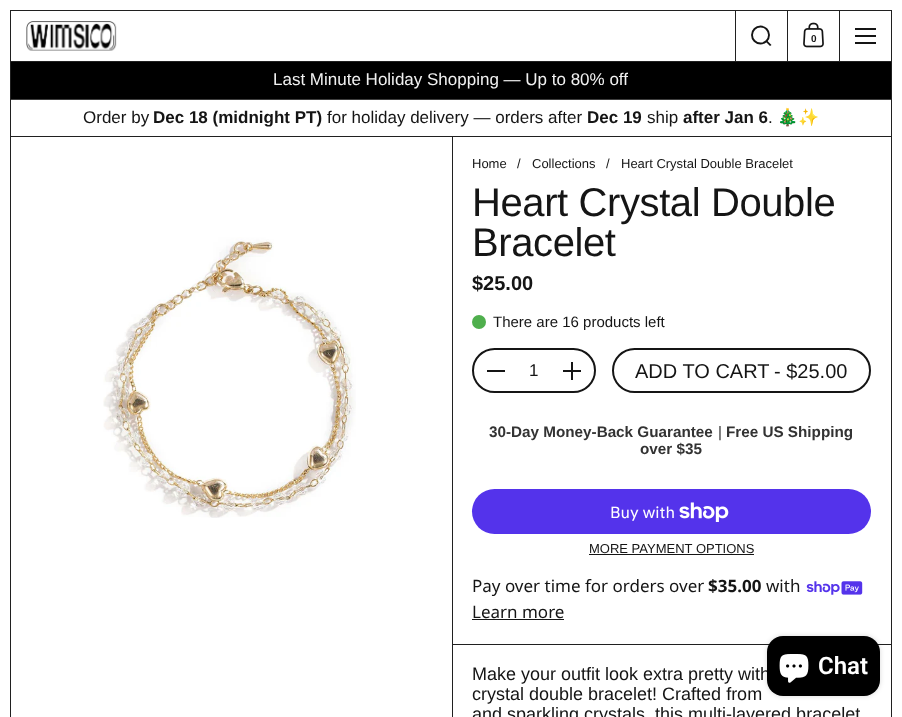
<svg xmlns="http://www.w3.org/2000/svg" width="902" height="717">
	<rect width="100%" height="100%" fill="#FFFFFF" />
	<rect x="10.5" y="10.5" width="881" height="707" fill="none" stroke="#202020" />
	<image x="26" y="21" width="91" height="30" href="assets/img1.png" />
	<rect x="735" y="11" width="1" height="50" fill="#202020" />
	<circle cx="760.5" cy="35" r="8.5" fill="none" stroke="#151515" stroke-width="1.9" />
	<path d="M765.5 41.5L767 40.5L771.5 45L770 46Z" fill="#151515" />
	<rect x="787" y="11" width="1" height="50" fill="#202020" />
	<image x="803" y="22" width="21" height="26" href="assets/img2.png" />
	<text x="811" y="42" font-family="Liberation Sans" font-size="10" font-weight="700" fill="#151515">0</text>
	<rect x="839" y="11" width="1" height="50" fill="#202020" />
	<rect x="855" y="28" width="21" height="2" fill="#151515" />
	<rect x="855" y="35" width="21" height="2" fill="#151515" />
	<rect x="855" y="42" width="21" height="2" fill="#151515" />
	<rect x="11" y="61" width="880" height="1" fill="#202020" />
	<rect x="11" y="62" width="880" height="37" fill="#000000" />
	<text x="273" y="85" font-family="Liberation Sans" font-size="17" fill="#F1F1F1">Last Minute Holiday Shopping — Up to 80% off</text>
	<rect x="11" y="99" width="880" height="1" fill="#3E3E3E" />
	<text x="83" y="123" font-family="Liberation Sans" font-size="17" fill="#151515">Order by</text>
	<text x="153" y="123" font-family="Liberation Sans" font-size="17" font-weight="700" fill="#151515">Dec 18 (midnight PT)</text>
	<text x="327" y="123" font-family="Liberation Sans" font-size="17" fill="#151515">for holiday delivery — orders after</text>
	<text x="587" y="123" font-family="Liberation Sans" font-size="17" font-weight="700" fill="#151515">Dec 19</text>
	<text x="647" y="123" font-family="Liberation Sans" font-size="17" fill="#151515">ship</text>
	<text x="683" y="123" font-family="Liberation Sans" font-size="17" font-weight="700" fill="#151515">after Jan 6</text>
	<text x="768" y="123" font-family="Liberation Sans" font-size="17" fill="#151515">.</text>
	<text x="777" y="123" font-family="Noto Color Emoji" font-size="17" fill="#151515">🎄✨</text>
	<rect x="11" y="136" width="880" height="1" fill="#202020" />
	<image x="103" y="237" width="253" height="281" href="assets/img3.png" />
	<rect x="452" y="137" width="1" height="580" fill="#202020" />
	<g font-family="Liberation Sans" font-size="13" fill="#151515">
		<text x="472" y="168">Home</text>
		<text x="517" y="168">/</text>
		<text x="532" y="168">Collections</text>
		<text x="606" y="168">/</text>
		<text x="621" y="168">Heart Crystal Double Bracelet</text>
	</g>
	<g font-family="Liberation Sans" font-size="40" letter-spacing="-0.4" fill="#151515">
		<text x="472" y="216">Heart Crystal Double</text>
		<text x="472" y="256">Bracelet</text>
	</g>
	<text x="472" y="290" font-family="Liberation Sans" font-size="20" font-weight="700" fill="#151515">$25.00</text>
	<circle cx="479" cy="322" r="7" fill="#4FAF4D" />
	<text x="493" y="327" font-family="Liberation Sans" font-size="15" fill="#151515">There are 16 products left</text>
	<rect x="473" y="349" width="122" height="43" rx="21.5" fill="none" stroke="#151515" stroke-width="2" />
	<rect x="487" y="370" width="18" height="2" fill="#151515" />
	<text x="529" y="376" font-family="Liberation Sans" font-size="17" fill="#151515">1</text>
	<rect x="563" y="370" width="10" height="2" fill="#151515" />
	<rect x="571" y="370" width="2" height="10" fill="#151515" />
	<rect x="571" y="370" width="10" height="2" fill="#151515" />
	<rect x="571" y="362" width="2" height="10" fill="#151515" />
	<rect x="613" y="349" width="257" height="43" rx="21.5" fill="none" stroke="#151515" stroke-width="2" />
	<g font-family="Liberation Sans" font-size="20" fill="#151515">
		<text x="635" y="378">ADD TO CART</text>
		<text x="774" y="378">- $25.00</text>
	</g>
	<text x="489" y="437" font-family="Liberation Sans" font-size="15.25" font-weight="700" fill="#333333">30-Day Money-Back Guarantee</text>
	<text x="718" y="437" font-family="Liberation Sans" font-size="15.25" fill="#333333">|</text>
	<g font-family="Liberation Sans" font-size="15.25" font-weight="700" fill="#333333">
		<text x="726" y="437">Free US Shipping</text>
		<text x="640" y="454">over $35</text>
	</g>
	<rect x="472" y="489" width="399" height="45" rx="22.5" fill="#5433EB" />
	<text x="610" y="518" font-family="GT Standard" font-size="16" fill="#FFFFFF">Buy with</text>
	<image x="679" y="502" width="50" height="20" href="assets/img4.png" />
	<text x="589" y="553" font-family="Liberation Sans" font-size="13" fill="#151515">MORE PAYMENT OPTIONS</text>
	<rect x="589" y="554" width="165" height="1" fill="#151515" />
	<text x="472" y="592" font-family="Noto Sans" font-size="17" fill="#151515">Pay over time for orders over</text>
	<text x="708" y="592" font-family="Noto Sans" font-size="17" font-weight="700" fill="#151515">$35.00</text>
	<text x="766" y="592" font-family="Noto Sans" font-size="17" fill="#151515">with</text>
	<image x="806" y="581" width="57" height="14" href="assets/img5.png" />
	<text x="472" y="618" font-family="Noto Sans" font-size="17" fill="#151515">Learn more</text>
	<rect x="472" y="619" width="92" height="1" fill="#151515" />
	<rect x="452" y="644" width="439" height="1" fill="#202020" />
	<g font-family="Liberation Sans" font-size="18" fill="#151515">
		<text x="472" y="680">Make your outfit look extra pretty with</text>
		<text x="472" y="700">crystal double bracelet! Crafted from</text>
		<text x="472" y="720">and sparkling crystals, this multi-layered bracelet</text>
	</g>
	<rect x="767" y="636" width="113" height="60" rx="16" fill="#000000" fill-opacity="0.15" filter="blur(2.5px)" />
	<rect x="767" y="636" width="113" height="60" rx="16" fill="#000000" />
	<image x="779" y="654" width="30" height="29" href="assets/img6.png" />
	<text x="818" y="674" font-family="Roboto" font-size="24" font-weight="600" fill="#FFFFFF">Chat</text>
</svg>
